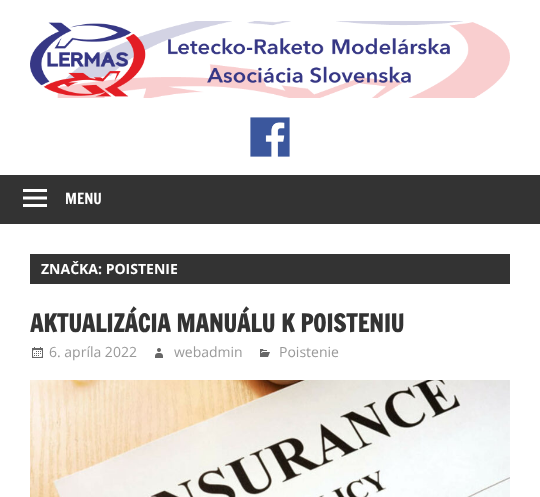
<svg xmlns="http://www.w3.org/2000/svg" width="540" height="497">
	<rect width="100%" height="100%" fill="#FFFFFF" />
	<image x="30" y="21" width="480" height="77" href="assets/img1.png" />
	<image x="250" y="117" width="40" height="40" href="assets/img2.png" />
	<rect x="0" y="175" width="540" height="49" fill="#333333" />
	<image x="23" y="189" width="24" height="18" href="assets/img3.png" />
	<text x="65" y="204" font-family="Francois One" font-size="15" fill="#FFFFFF">MENU</text>
	<rect x="30" y="254" width="480" height="30" fill="#333333" />
	<text x="41" y="274" font-family="Open Sans" font-size="14" font-weight="700" fill="#FFFFFF">ZNAČKA: POISTENIE</text>
	<text x="30" y="332" font-family="Francois One" font-size="24" font-weight="700" fill="#333333">AKTUALIZÁCIA MANUÁLU K POISTENIU</text>
	<image x="32" y="347" width="11" height="11" href="assets/img4.png" />
	<text x="49" y="357" font-family="Open Sans" font-size="14" fill="#999999">6. apríla 2022</text>
	<image x="155" y="348" width="8" height="10" href="assets/img5.png" />
	<text x="174" y="357" font-family="Open Sans" font-size="14" fill="#999999">webadmin</text>
	<image x="260" y="349" width="10" height="8" href="assets/img6.png" />
	<text x="279" y="357" font-family="Open Sans" font-size="14" fill="#999999">Poistenie</text>
	<image x="30" y="380" width="480" height="117" href="assets/img7.png" />
</svg>
